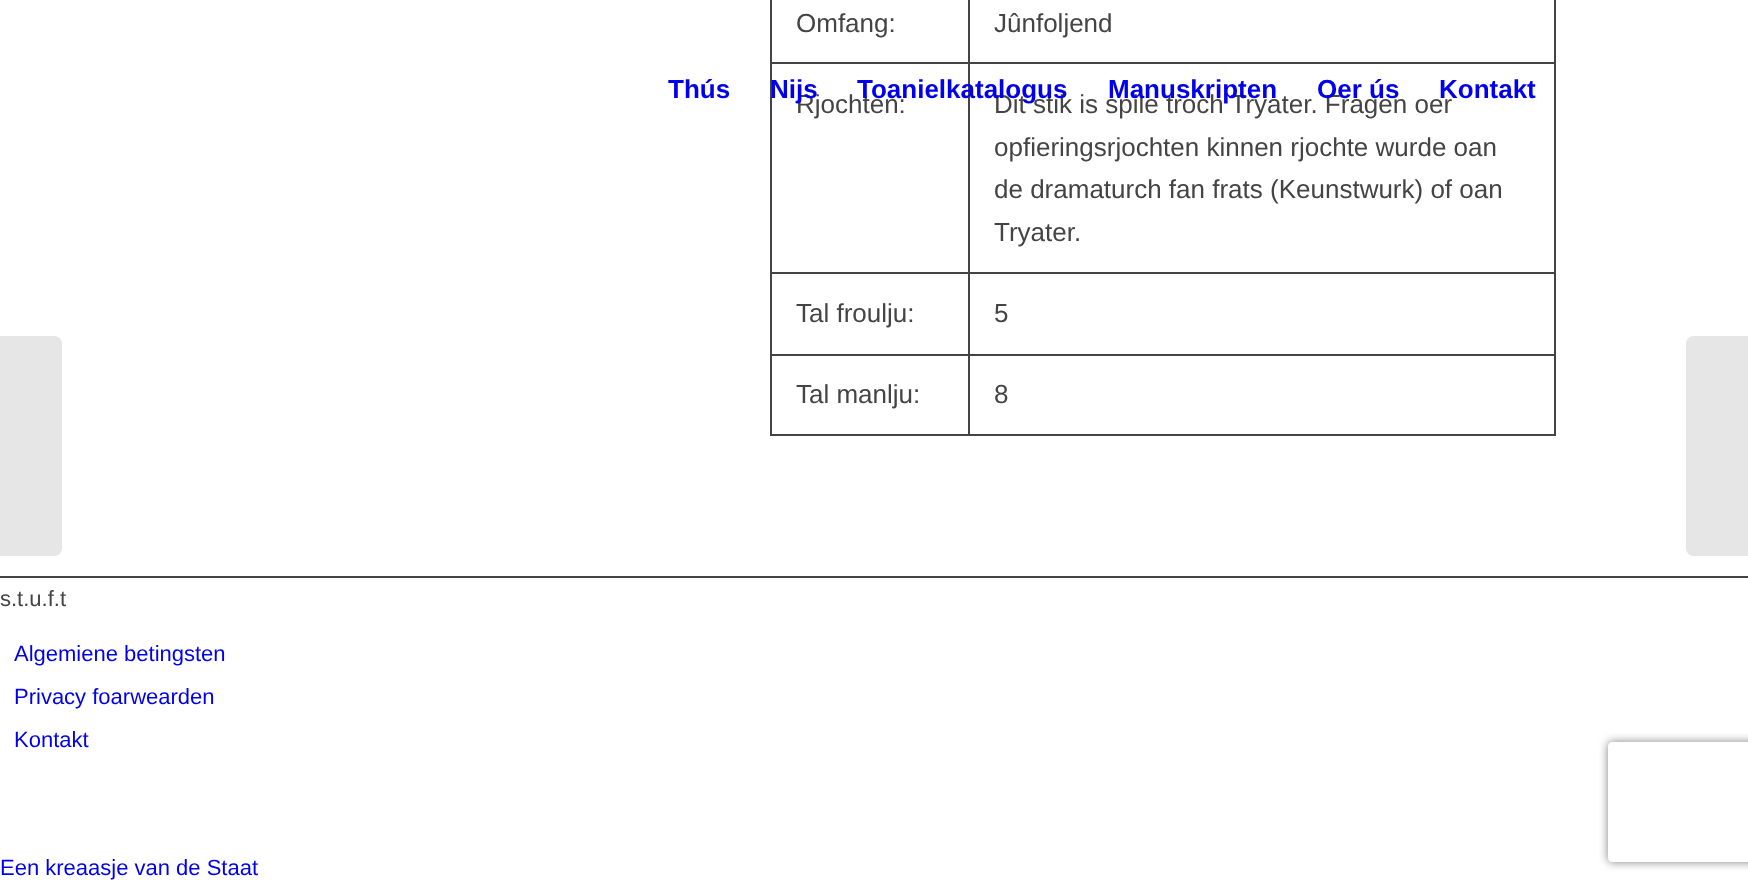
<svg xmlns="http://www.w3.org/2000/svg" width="1748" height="889">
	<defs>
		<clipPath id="clip1"><path d="M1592 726H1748V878H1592ZM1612 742H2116C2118 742 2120 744 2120 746V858C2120 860 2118 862 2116 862H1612C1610 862 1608 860 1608 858V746C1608 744 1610 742 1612 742Z" clip-rule="evenodd" /></clipPath>
	</defs>
	<rect width="100%" height="100%" fill="#FFFFFF" />
	<rect x="1554" y="0" width="2" height="436" fill="#444444" />
	<rect x="968" y="434" width="588" height="2" fill="#444444" />
	<rect x="968" y="354" width="2" height="82" fill="#444444" />
	<rect x="968" y="354" width="588" height="2" fill="#444444" />
	<rect x="968" y="272" width="2" height="84" fill="#444444" />
	<rect x="968" y="272" width="588" height="2" fill="#444444" />
	<rect x="968" y="62" width="2" height="212" fill="#444444" />
	<rect x="968" y="62" width="588" height="2" fill="#444444" />
	<rect x="968" y="0" width="2" height="64" fill="#444444" />
	<rect x="770" y="434" width="200" height="2" fill="#444444" />
	<rect x="770" y="354" width="2" height="82" fill="#444444" />
	<rect x="770" y="354" width="200" height="2" fill="#444444" />
	<rect x="770" y="272" width="2" height="84" fill="#444444" />
	<rect x="770" y="272" width="200" height="2" fill="#444444" />
	<rect x="770" y="62" width="2" height="212" fill="#444444" />
	<rect x="770" y="62" width="200" height="2" fill="#444444" />
	<rect x="770" y="0" width="2" height="64" fill="#444444" />
	<g font-family="Liberation Sans" font-size="26" fill="#444444">
		<text x="796" y="32">Omfang:</text>
		<text x="994" y="32">Jûnfoljend</text>
		<text x="796" y="113">Rjochten:</text>
		<text x="994" y="113">Dit stik is spile troch Tryater. Fragen oer</text>
		<text x="994" y="156">opfieringsrjochten kinnen rjochte wurde oan</text>
		<text x="994" y="198">de dramaturch fan frats (Keunstwurk) of oan</text>
		<text x="994" y="241">Tryater.</text>
		<text x="796" y="322">Tal froulju:</text>
		<text x="994" y="322">5</text>
		<text x="796" y="403">Tal manlju:</text>
		<text x="994" y="403">8</text>
	</g>
	<rect x="0" y="576" width="1748" height="2" fill="#444444" />
	<text x="0" y="606" font-family="Liberation Sans" font-size="22" fill="#444444">s.t.u.f.t</text>
	<g font-family="Liberation Sans" font-size="22" fill="#0000EE">
		<text x="14" y="661">Algemiene betingsten</text>
		<text x="14" y="704">Privacy foarwearden</text>
		<text x="14" y="747">Kontakt</text>
		<text x="0" y="875">Een kreaasje van de Staat</text>
	</g>
	<g font-family="Liberation Sans" font-size="26" font-weight="700" fill="#0000EE">
		<text x="668" y="98">Thús</text>
		<text x="770" y="98">Nijs</text>
		<text x="857" y="98">Toanielkatalogus</text>
		<text x="1108" y="98">Manuskripten</text>
		<text x="1317" y="98">Oer ús</text>
		<text x="1439" y="98">Kontakt</text>
	</g>
	<path d="M0 336H54C58.5 336 62 339.5 62 344V548C62 552.5 58.5 556 54 556H0Z" fill="#E6E6E6" />
	<path d="M1694 336H1748V556H1694C1689.5 556 1686 552.5 1686 548V344C1686 339.5 1689.5 336 1694 336Z" fill="#E6E6E6" />
	<g clip-path="url(#clip1)">
		<rect x="1608" y="742" width="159" height="120" rx="4" fill="#808080" filter="blur(5px)" />
	</g>
</svg>
